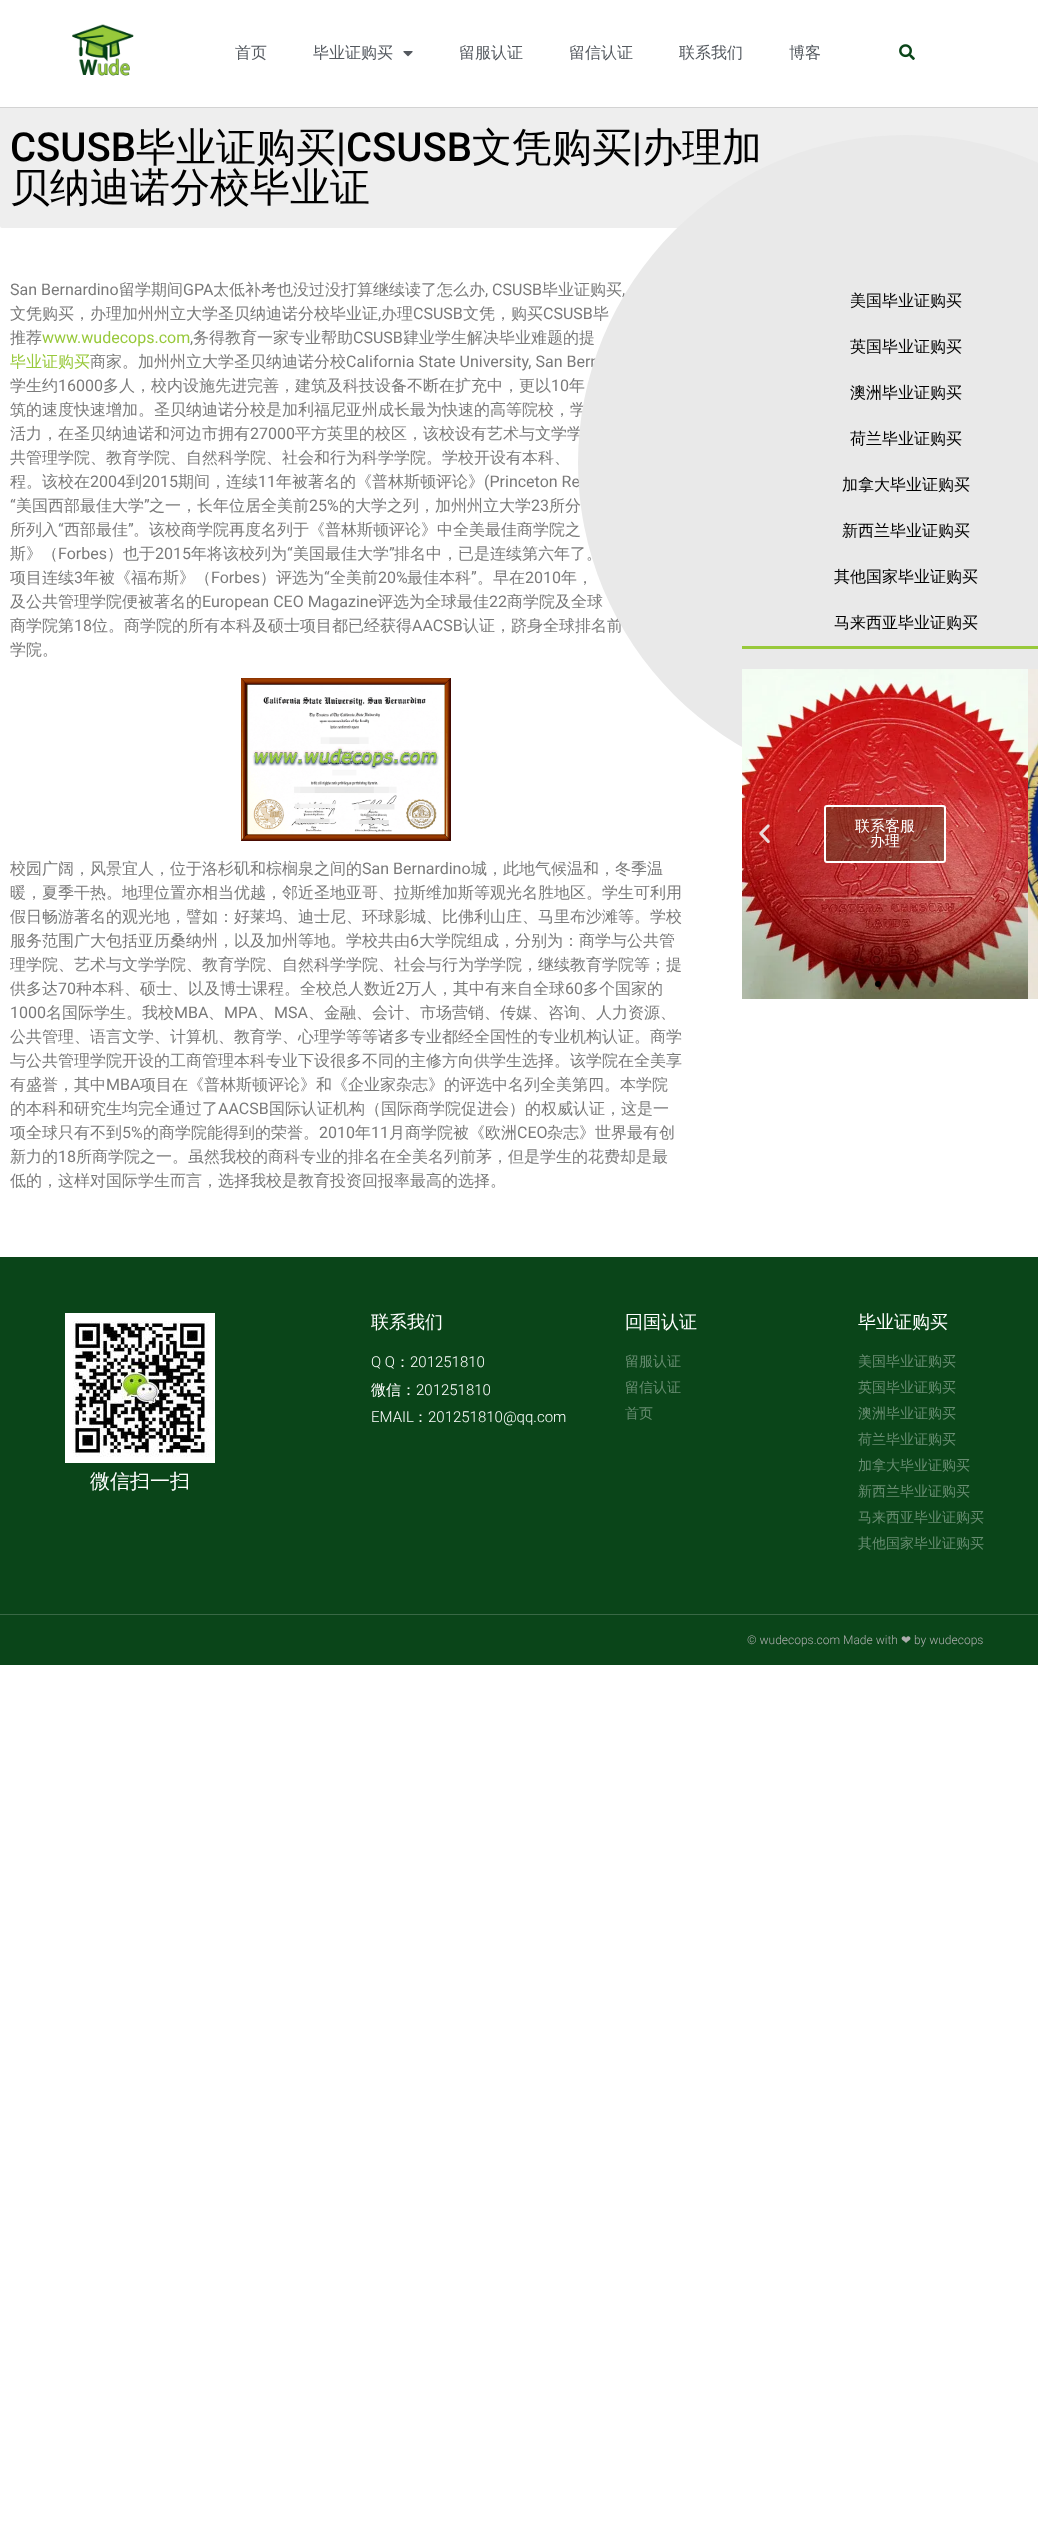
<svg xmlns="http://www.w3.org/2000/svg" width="1038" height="2526">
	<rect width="100%" height="100%" fill="#FFFFFF" />
	<rect x="0" y="107" width="1038" height="1" fill="#D3D3D3" />
	<image x="72" y="24" width="62" height="52" href="assets/img1.png" />
	<g font-family="WenQuanYi Zen Hei" font-size="16" font-weight="500" fill="#54595F">
		<text x="235" y="58">首页</text>
		<text x="313" y="58">毕业证购买</text>
	</g>
	<image x="403" y="51" width="10" height="6" href="assets/img2.png" />
	<g font-family="WenQuanYi Zen Hei" font-size="16" font-weight="500" fill="#54595F">
		<text x="459" y="58">留服认证</text>
		<text x="569" y="58">留信认证</text>
		<text x="679" y="58">联系我们</text>
		<text x="789" y="58">博客</text>
	</g>
	<image x="899" y="44" width="16" height="16" href="assets/img3.png" />
	<path d="M0 108H1038V228H2C1 228 0 227 0 226Z" fill="#EEEEEE" />
	<text x="10" y="161" font-family="Roboto" font-size="40" font-weight="500" fill="#000000">CSUSB</text>
	<text x="136" y="161" font-family="WenQuanYi Zen Hei" font-size="40" font-weight="500" fill="#000000">毕业证购买</text>
	<text x="336" y="161" font-family="Roboto" font-size="40" font-weight="500" fill="#000000">|CSUSB</text>
	<text x="472" y="161" font-family="WenQuanYi Zen Hei" font-size="40" font-weight="500" fill="#000000">文凭购买</text>
	<text x="632" y="161" font-family="Roboto" font-size="40" font-weight="500" fill="#000000">|</text>
	<g font-family="WenQuanYi Zen Hei" font-size="40" font-weight="500" fill="#000000">
		<text x="642" y="161">办理加</text>
		<text x="10" y="201">贝纳迪诺分校毕业证</text>
	</g>
	<text x="10" y="295" font-family="Roboto" font-size="16" fill="#7A7A7A">San Bernardino</text>
	<text x="119" y="295" font-family="WenQuanYi Zen Hei" font-size="16" font-weight="500" fill="#7A7A7A">留学期间</text>
	<text x="183" y="295" font-family="Roboto" font-size="16" fill="#7A7A7A">GPA</text>
	<text x="213" y="295" font-family="WenQuanYi Zen Hei" font-size="16" font-weight="500" fill="#7A7A7A">太低补考也没过没打算继续读了怎么办</text>
	<text x="485" y="295" font-family="Roboto" font-size="16" fill="#7A7A7A">, CSUSB</text>
	<text x="542" y="295" font-family="WenQuanYi Zen Hei" font-size="16" font-weight="500" fill="#7A7A7A">毕业证购买</text>
	<text x="622" y="295" font-family="Roboto" font-size="16" fill="#7A7A7A">,</text>
	<text x="10" y="319" font-family="WenQuanYi Zen Hei" font-size="16" font-weight="500" fill="#7A7A7A">文凭购买，办理加州州立大学圣贝纳迪诺分校毕业证</text>
	<text x="378" y="319" font-family="Roboto" font-size="16" fill="#7A7A7A">,</text>
	<text x="381" y="319" font-family="WenQuanYi Zen Hei" font-size="16" font-weight="500" fill="#7A7A7A">办理</text>
	<text x="413" y="319" font-family="Roboto" font-size="16" fill="#7A7A7A">CSUSB</text>
	<text x="463" y="319" font-family="WenQuanYi Zen Hei" font-size="16" font-weight="500" fill="#7A7A7A">文凭，购买</text>
	<text x="543" y="319" font-family="Roboto" font-size="16" fill="#7A7A7A">CSUSB</text>
	<g font-family="WenQuanYi Zen Hei" font-size="16" font-weight="500" fill="#7A7A7A">
		<text x="593" y="319">毕</text>
		<text x="10" y="343">推荐</text>
	</g>
	<text x="42" y="343" font-family="Roboto" font-size="16" fill="#98C93B">www.wudecops.com</text>
	<text x="190" y="343" font-family="Roboto" font-size="16" fill="#7A7A7A">,</text>
	<text x="193" y="343" font-family="WenQuanYi Zen Hei" font-size="16" font-weight="500" fill="#7A7A7A">务得教育一家专业帮助</text>
	<text x="353" y="343" font-family="Roboto" font-size="16" fill="#7A7A7A">CSUSB</text>
	<text x="403" y="343" font-family="WenQuanYi Zen Hei" font-size="16" font-weight="500" fill="#7A7A7A">肄业学生解决毕业难题的提</text>
	<text x="10" y="367" font-family="WenQuanYi Zen Hei" font-size="16" font-weight="500" fill="#98C93B">毕业证购买</text>
	<text x="90" y="367" font-family="WenQuanYi Zen Hei" font-size="16" font-weight="500" fill="#7A7A7A">商家。加州州立大学圣贝纳迪诺分校</text>
	<text x="346" y="367" font-family="Roboto" font-size="16" fill="#7A7A7A">California State University, San Bern</text>
	<text x="10" y="391" font-family="WenQuanYi Zen Hei" font-size="16" font-weight="500" fill="#7A7A7A">学生约</text>
	<text x="58" y="391" font-family="Roboto" font-size="16" fill="#7A7A7A">16000</text>
	<text x="103" y="391" font-family="WenQuanYi Zen Hei" font-size="16" font-weight="500" fill="#7A7A7A">多人，校内设施先进完善，建筑及科技设备不断在扩充中，更以</text>
	<text x="551" y="391" font-family="Roboto" font-size="16" fill="#7A7A7A">10</text>
	<g font-family="WenQuanYi Zen Hei" font-size="16" font-weight="500" fill="#7A7A7A">
		<text x="569" y="391">年</text>
		<text x="10" y="415">筑的速度快速增加。圣贝纳迪诺分校是加利福尼亚州成长最为快速的高等院校，学</text>
		<text x="10" y="439">活力，在圣贝纳迪诺和河边市拥有</text>
	</g>
	<text x="250" y="439" font-family="Roboto" font-size="16" fill="#7A7A7A">27000</text>
	<g font-family="WenQuanYi Zen Hei" font-size="16" font-weight="500" fill="#7A7A7A">
		<text x="295" y="439">平方英里的校区，该校设有艺术与文学学</text>
		<text x="10" y="463">共管理学院、教育学院、自然科学院、社会和行为科学学院。学校开设有本科、</text>
		<text x="10" y="487">程。该校在</text>
	</g>
	<text x="90" y="487" font-family="Roboto" font-size="16" fill="#7A7A7A">2004</text>
	<text x="126" y="487" font-family="WenQuanYi Zen Hei" font-size="16" font-weight="500" fill="#7A7A7A">到</text>
	<text x="142" y="487" font-family="Roboto" font-size="16" fill="#7A7A7A">2015</text>
	<text x="178" y="487" font-family="WenQuanYi Zen Hei" font-size="16" font-weight="500" fill="#7A7A7A">期间，连续</text>
	<text x="258" y="487" font-family="Roboto" font-size="16" fill="#7A7A7A">11</text>
	<text x="276" y="487" font-family="WenQuanYi Zen Hei" font-size="16" font-weight="500" fill="#7A7A7A">年被著名的《普林斯顿评论》</text>
	<g font-family="Roboto" font-size="16" fill="#7A7A7A">
		<text x="484" y="487">(Princeton Re</text>
		<text x="10" y="511">“</text>
	</g>
	<text x="16" y="511" font-family="WenQuanYi Zen Hei" font-size="16" font-weight="500" fill="#7A7A7A">美国西部最佳大学</text>
	<text x="144" y="511" font-family="Roboto" font-size="16" fill="#7A7A7A">”</text>
	<text x="149" y="511" font-family="WenQuanYi Zen Hei" font-size="16" font-weight="500" fill="#7A7A7A">之一，长年位居全美前</text>
	<text x="309" y="511" font-family="Roboto" font-size="16" fill="#7A7A7A">25%</text>
	<text x="339" y="511" font-family="WenQuanYi Zen Hei" font-size="16" font-weight="500" fill="#7A7A7A">的大学之列，加州州立大学</text>
	<text x="531" y="511" font-family="Roboto" font-size="16" fill="#7A7A7A">23</text>
	<g font-family="WenQuanYi Zen Hei" font-size="16" font-weight="500" fill="#7A7A7A">
		<text x="549" y="511">所分</text>
		<text x="10" y="535">所列入</text>
	</g>
	<text x="58" y="535" font-family="Roboto" font-size="16" fill="#7A7A7A">“</text>
	<text x="64" y="535" font-family="WenQuanYi Zen Hei" font-size="16" font-weight="500" fill="#7A7A7A">西部最佳</text>
	<text x="128" y="535" font-family="Roboto" font-size="16" fill="#7A7A7A">”</text>
	<g font-family="WenQuanYi Zen Hei" font-size="16" font-weight="500" fill="#7A7A7A">
		<text x="133" y="535">。该校商学院再度名列于《普林斯顿评论》中全美最佳商学院之</text>
		<text x="10" y="559">斯》（</text>
	</g>
	<text x="58" y="559" font-family="Roboto" font-size="16" fill="#7A7A7A">Forbes</text>
	<text x="107" y="559" font-family="WenQuanYi Zen Hei" font-size="16" font-weight="500" fill="#7A7A7A">）也于</text>
	<text x="155" y="559" font-family="Roboto" font-size="16" fill="#7A7A7A">2015</text>
	<text x="191" y="559" font-family="WenQuanYi Zen Hei" font-size="16" font-weight="500" fill="#7A7A7A">年将该校列为</text>
	<text x="287" y="559" font-family="Roboto" font-size="16" fill="#7A7A7A">“</text>
	<text x="293" y="559" font-family="WenQuanYi Zen Hei" font-size="16" font-weight="500" fill="#7A7A7A">美国最佳大学</text>
	<text x="389" y="559" font-family="Roboto" font-size="16" fill="#7A7A7A">”</text>
	<g font-family="WenQuanYi Zen Hei" font-size="16" font-weight="500" fill="#7A7A7A">
		<text x="394" y="559">排名中，已是连续第六年了。</text>
		<text x="10" y="583">项目连续</text>
	</g>
	<text x="74" y="583" font-family="Roboto" font-size="16" fill="#7A7A7A">3</text>
	<text x="83" y="583" font-family="WenQuanYi Zen Hei" font-size="16" font-weight="500" fill="#7A7A7A">年被《福布斯》（</text>
	<text x="211" y="583" font-family="Roboto" font-size="16" fill="#7A7A7A">Forbes</text>
	<text x="260" y="583" font-family="WenQuanYi Zen Hei" font-size="16" font-weight="500" fill="#7A7A7A">）评选为</text>
	<text x="324" y="583" font-family="Roboto" font-size="16" fill="#7A7A7A">“</text>
	<text x="330" y="583" font-family="WenQuanYi Zen Hei" font-size="16" font-weight="500" fill="#7A7A7A">全美前</text>
	<text x="378" y="583" font-family="Roboto" font-size="16" fill="#7A7A7A">20%</text>
	<text x="407" y="583" font-family="WenQuanYi Zen Hei" font-size="16" font-weight="500" fill="#7A7A7A">最佳本科</text>
	<text x="471" y="583" font-family="Roboto" font-size="16" fill="#7A7A7A">”</text>
	<text x="477" y="583" font-family="WenQuanYi Zen Hei" font-size="16" font-weight="500" fill="#7A7A7A">。早在</text>
	<text x="525" y="583" font-family="Roboto" font-size="16" fill="#7A7A7A">2010</text>
	<g font-family="WenQuanYi Zen Hei" font-size="16" font-weight="500" fill="#7A7A7A">
		<text x="561" y="583">年，</text>
		<text x="10" y="607">及公共管理学院便被著名的</text>
	</g>
	<text x="202" y="607" font-family="Roboto" font-size="16" fill="#7A7A7A">European CEO Magazine</text>
	<text x="377" y="607" font-family="WenQuanYi Zen Hei" font-size="16" font-weight="500" fill="#7A7A7A">评选为全球最佳</text>
	<text x="489" y="607" font-family="Roboto" font-size="16" fill="#7A7A7A">22</text>
	<g font-family="WenQuanYi Zen Hei" font-size="16" font-weight="500" fill="#7A7A7A">
		<text x="507" y="607">商学院及全球</text>
		<text x="10" y="631">商学院第</text>
	</g>
	<text x="74" y="631" font-family="Roboto" font-size="16" fill="#7A7A7A">18</text>
	<text x="92" y="631" font-family="WenQuanYi Zen Hei" font-size="16" font-weight="500" fill="#7A7A7A">位。商学院的所有本科及硕士项目都已经获得</text>
	<text x="412" y="631" font-family="Roboto" font-size="16" fill="#7A7A7A">AACSB</text>
	<g font-family="WenQuanYi Zen Hei" font-size="16" font-weight="500" fill="#7A7A7A">
		<text x="463" y="631">认证，跻身全球排名前</text>
		<text x="10" y="655">学院。</text>
	</g>
	<image x="241" y="678" width="210" height="163" href="assets/img4.png" />
	<text x="10" y="874" font-family="WenQuanYi Zen Hei" font-size="16" font-weight="500" fill="#7A7A7A">校园广阔，风景宜人，位于洛杉矶和棕榈泉之间的</text>
	<text x="362" y="874" font-family="Roboto" font-size="16" fill="#7A7A7A">San Bernardino</text>
	<g font-family="WenQuanYi Zen Hei" font-size="16" font-weight="500" fill="#7A7A7A">
		<text x="471" y="874">城，此地气候温和，冬季温</text>
		<text x="10" y="898">暖，夏季干热。地理位置亦相当优越，邻近圣地亚哥、拉斯维加斯等观光名胜地区。学生可利用</text>
		<text x="10" y="922">假日畅游著名的观光地，譬如：好莱坞、迪士尼、环球影城、比佛利山庄、马里布沙滩等。学校</text>
		<text x="10" y="946">服务范围广大包括亚历桑纳州，以及加州等地。学校共由</text>
	</g>
	<text x="410" y="946" font-family="Roboto" font-size="16" fill="#7A7A7A">6</text>
	<g font-family="WenQuanYi Zen Hei" font-size="16" font-weight="500" fill="#7A7A7A">
		<text x="419" y="946">大学院组成，分别为：商学与公共管</text>
		<text x="10" y="970">理学院、艺术与文学学院、教育学院、自然科学学院、社会与行为学学院，继续教育学院等；提</text>
		<text x="10" y="994">供多达</text>
	</g>
	<text x="58" y="994" font-family="Roboto" font-size="16" fill="#7A7A7A">70</text>
	<text x="76" y="994" font-family="WenQuanYi Zen Hei" font-size="16" font-weight="500" fill="#7A7A7A">种本科、硕士、以及博士课程。全校总人数近</text>
	<text x="396" y="994" font-family="Roboto" font-size="16" fill="#7A7A7A">2</text>
	<text x="405" y="994" font-family="WenQuanYi Zen Hei" font-size="16" font-weight="500" fill="#7A7A7A">万人，其中有来自全球</text>
	<text x="565" y="994" font-family="Roboto" font-size="16" fill="#7A7A7A">60</text>
	<text x="583" y="994" font-family="WenQuanYi Zen Hei" font-size="16" font-weight="500" fill="#7A7A7A">多个国家的</text>
	<text x="10" y="1018" font-family="Roboto" font-size="16" fill="#7A7A7A">1000</text>
	<text x="46" y="1018" font-family="WenQuanYi Zen Hei" font-size="16" font-weight="500" fill="#7A7A7A">名国际学生。我校</text>
	<text x="174" y="1018" font-family="Roboto" font-size="16" fill="#7A7A7A">MBA</text>
	<text x="208" y="1018" font-family="WenQuanYi Zen Hei" font-size="16" font-weight="500" fill="#7A7A7A">、</text>
	<text x="224" y="1018" font-family="Roboto" font-size="16" fill="#7A7A7A">MPA</text>
	<text x="258" y="1018" font-family="WenQuanYi Zen Hei" font-size="16" font-weight="500" fill="#7A7A7A">、</text>
	<text x="274" y="1018" font-family="Roboto" font-size="16" fill="#7A7A7A">MSA</text>
	<g font-family="WenQuanYi Zen Hei" font-size="16" font-weight="500" fill="#7A7A7A">
		<text x="308" y="1018">、金融、会计、市场营销、传媒、咨询、人力资源、</text>
		<text x="10" y="1042">公共管理、语言文学、计算机、教育学、心理学等等诸多专业都经全国性的专业机构认证。商学</text>
		<text x="10" y="1066">与公共管理学院开设的工商管理本科专业下设很多不同的主修方向供学生选择。该学院在全美享</text>
		<text x="10" y="1090">有盛誉，其中</text>
	</g>
	<text x="106" y="1090" font-family="Roboto" font-size="16" fill="#7A7A7A">MBA</text>
	<g font-family="WenQuanYi Zen Hei" font-size="16" font-weight="500" fill="#7A7A7A">
		<text x="140" y="1090">项目在《普林斯顿评论》和《企业家杂志》的评选中名列全美第四。本学院</text>
		<text x="10" y="1114">的本科和研究生均完全通过了</text>
	</g>
	<text x="218" y="1114" font-family="Roboto" font-size="16" fill="#7A7A7A">AACSB</text>
	<g font-family="WenQuanYi Zen Hei" font-size="16" font-weight="500" fill="#7A7A7A">
		<text x="269" y="1114">国际认证机构（国际商学院促进会）的权威认证，这是一</text>
		<text x="10" y="1138">项全球只有不到</text>
	</g>
	<text x="122" y="1138" font-family="Roboto" font-size="16" fill="#7A7A7A">5%</text>
	<text x="143" y="1138" font-family="WenQuanYi Zen Hei" font-size="16" font-weight="500" fill="#7A7A7A">的商学院能得到的荣誉。</text>
	<text x="319" y="1138" font-family="Roboto" font-size="16" fill="#7A7A7A">2010</text>
	<text x="355" y="1138" font-family="WenQuanYi Zen Hei" font-size="16" font-weight="500" fill="#7A7A7A">年</text>
	<text x="371" y="1138" font-family="Roboto" font-size="16" fill="#7A7A7A">11</text>
	<text x="389" y="1138" font-family="WenQuanYi Zen Hei" font-size="16" font-weight="500" fill="#7A7A7A">月商学院被《欧洲</text>
	<text x="517" y="1138" font-family="Roboto" font-size="16" fill="#7A7A7A">CEO</text>
	<g font-family="WenQuanYi Zen Hei" font-size="16" font-weight="500" fill="#7A7A7A">
		<text x="547" y="1138">杂志》世界最有创</text>
		<text x="10" y="1162">新力的</text>
	</g>
	<text x="58" y="1162" font-family="Roboto" font-size="16" fill="#7A7A7A">18</text>
	<g font-family="WenQuanYi Zen Hei" font-size="16" font-weight="500" fill="#7A7A7A">
		<text x="76" y="1162">所商学院之一。虽然我校的商科专业的排名在全美名列前茅，但是学生的花费却是最</text>
		<text x="10" y="1186">低的，这样对国际学生而言，选择我校是教育投资回报率最高的选择。</text>
	</g>
	<circle cx="906" cy="463" r="328" fill="#E9E9E9" />
	<rect x="742" y="646" width="296" height="3" fill="#98C93B" />
	<g font-family="WenQuanYi Zen Hei" font-size="16" font-weight="500" fill="#000000">
		<text x="850" y="306">美国毕业证购买</text>
		<text x="850" y="352">英国毕业证购买</text>
		<text x="850" y="398">澳洲毕业证购买</text>
		<text x="850" y="444">荷兰毕业证购买</text>
		<text x="842" y="490">加拿大毕业证购买</text>
		<text x="842" y="536">新西兰毕业证购买</text>
		<text x="834" y="582">其他国家毕业证购买</text>
		<text x="834" y="628">马来西亚毕业证购买</text>
	</g>
	<image x="742" y="669" width="286" height="330" href="assets/img6.png" />
	<image x="759" y="824" width="11" height="20" href="assets/img5.png" />
	<rect x="825" y="806" width="120" height="56" rx="2" fill="#0A4519" fill-opacity="0.3" stroke="#FFFFFF" stroke-width="2" />
	<g font-family="WenQuanYi Zen Hei" font-size="15" font-weight="500" fill="#FFFFFF">
		<text x="855" y="831">联系客服</text>
		<text x="870" y="846">办理</text>
	</g>
	<image x="1028" y="669" width="10" height="330" href="assets/img7.png" />
	<circle cx="878" cy="984" r="3" fill="#000000" />
	<circle cx="896" cy="984" r="3" fill="#000000" fill-opacity="0.2" />
	<circle cx="914" cy="984" r="3" fill="#000000" fill-opacity="0.2" />
	<circle cx="932" cy="984" r="3" fill="#000000" fill-opacity="0.2" />
	<rect x="0" y="1257" width="1038" height="357" fill="#0A4519" />
	<image x="65" y="1313" width="150" height="150" href="assets/img8.png" />
	<text x="90" y="1488" font-family="WenQuanYi Zen Hei" font-size="20" font-weight="500" fill="#FFFFFF">微信扫一扫</text>
	<text x="371" y="1328" font-family="WenQuanYi Zen Hei" font-size="18" font-weight="500" fill="#FFFFFF">联系我们</text>
	<text x="371" y="1367" font-family="Roboto" font-size="15" font-weight="300" fill="#FFFFFF">Q Q</text>
	<text x="395" y="1367" font-family="WenQuanYi Zen Hei" font-size="15" font-weight="500" fill="#FFFFFF">：</text>
	<text x="410" y="1367" font-family="Roboto" font-size="15" font-weight="300" fill="#FFFFFF">201251810</text>
	<text x="371" y="1395" font-family="WenQuanYi Zen Hei" font-size="15" font-weight="500" fill="#FFFFFF">微信：</text>
	<g font-family="Roboto" font-size="15" font-weight="300" fill="#FFFFFF">
		<text x="416" y="1395">201251810</text>
		<text x="371" y="1422">EMAIL</text>
	</g>
	<text x="413" y="1422" font-family="WenQuanYi Zen Hei" font-size="15" font-weight="500" fill="#FFFFFF">：</text>
	<text x="428" y="1422" font-family="Roboto" font-size="15" font-weight="300" fill="#FFFFFF">201251810@qq.com</text>
	<text x="625" y="1328" font-family="WenQuanYi Zen Hei" font-size="18" font-weight="500" fill="#FFFFFF">回国认证</text>
	<g font-family="WenQuanYi Zen Hei" font-size="14" font-weight="500" fill="#678C70">
		<text x="625" y="1366">留服认证</text>
		<text x="625" y="1392">留信认证</text>
		<text x="625" y="1418">首页</text>
	</g>
	<text x="858" y="1328" font-family="WenQuanYi Zen Hei" font-size="18" font-weight="500" fill="#FFFFFF">毕业证购买</text>
	<g font-family="WenQuanYi Zen Hei" font-size="14" font-weight="500" fill="#678C70">
		<text x="858" y="1366">美国毕业证购买</text>
		<text x="858" y="1392">英国毕业证购买</text>
		<text x="858" y="1418">澳洲毕业证购买</text>
		<text x="858" y="1444">荷兰毕业证购买</text>
		<text x="858" y="1470">加拿大毕业证购买</text>
		<text x="858" y="1496">新西兰毕业证购买</text>
		<text x="858" y="1522">马来西亚毕业证购买</text>
		<text x="858" y="1548">其他国家毕业证购买</text>
	</g>
	<rect x="0" y="1615" width="1038" height="50" fill="#0A4519" />
	<rect x="0" y="1614" width="1038" height="1" fill="#396845" />
	<text x="747" y="1644" font-family="Roboto" font-size="12" font-weight="300" fill="#ADADAD">© wudecops.com Made with</text>
	<text x="901" y="1644" font-family="DejaVu Sans" font-size="12" fill="#ADADAD">❤</text>
	<text x="914" y="1644" font-family="Roboto" font-size="12" font-weight="300" fill="#ADADAD">by wudecops</text>
</svg>
